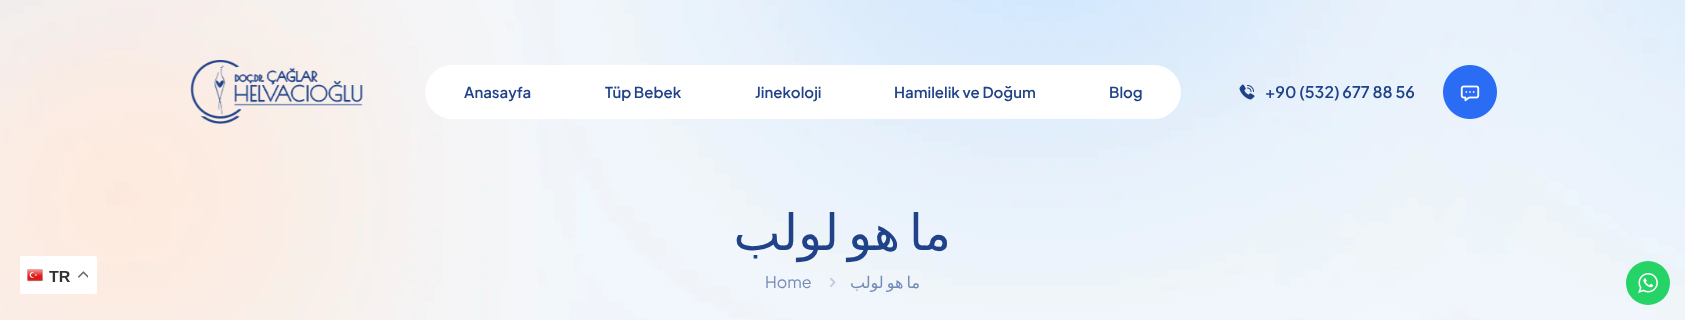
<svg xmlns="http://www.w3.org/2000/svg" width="1685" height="320">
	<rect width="100%" height="100%" fill="#FFFFFF" />
	<image x="0" y="0" width="1685" height="320" href="assets/img6.png" />
	<rect x="20" y="256" width="77" height="38" rx="2" fill="#FFFFFF" />
	<image x="27" y="269" width="16" height="13" href="assets/img1.png" />
	<text x="49" y="282" font-family="Liberation Sans" font-size="16" font-weight="700" fill="#333333">TR</text>
	<image x="78" y="271" width="10" height="7" href="assets/img2.png" />
	<image x="190" y="60" width="173" height="64" href="assets/img3.png" />
	<rect x="425" y="65" width="756" height="54" rx="27" fill="#FFFFFF" />
	<g font-family="Plus Jakarta Sans" font-size="15" font-weight="600" fill="#204289">
		<text x="464" y="98">Anasayfa</text>
		<text x="605" y="98">Tüp Bebek</text>
		<text x="755" y="98">Jinekoloji</text>
		<text x="894" y="98">Hamilelik ve Doğum</text>
		<text x="1109" y="98">Blog</text>
	</g>
	<image x="1239" y="84" width="16" height="16" href="assets/img4.png" />
	<text x="1265" y="98" font-family="Plus Jakarta Sans" font-size="16" font-weight="600" fill="#204289">+90 (532) 677 88 56</text>
	<image x="1443" y="65" width="54" height="54" href="assets/img5.png" />
	<text x="951" y="250" word-spacing="-7" font-family="DejaVu Sans" font-size="50" direction="rtl" fill="#204289">ما هو لولب</text>
	<text x="765" y="288" font-family="Plus Jakarta Sans" font-size="16" fill="#738AB7">Home</text>
	<image x="830" y="277" width="6" height="10" href="assets/img7.png" />
	<text x="920" y="288" word-spacing="-2" font-family="DejaVu Sans" font-size="16" direction="rtl" fill="#738AB7">ما هو لولب</text>
	<circle cx="1648" cy="283" r="22" fill="#25D366" />
	<image x="1638" y="273" width="20" height="20" href="assets/img8.png" />
</svg>
